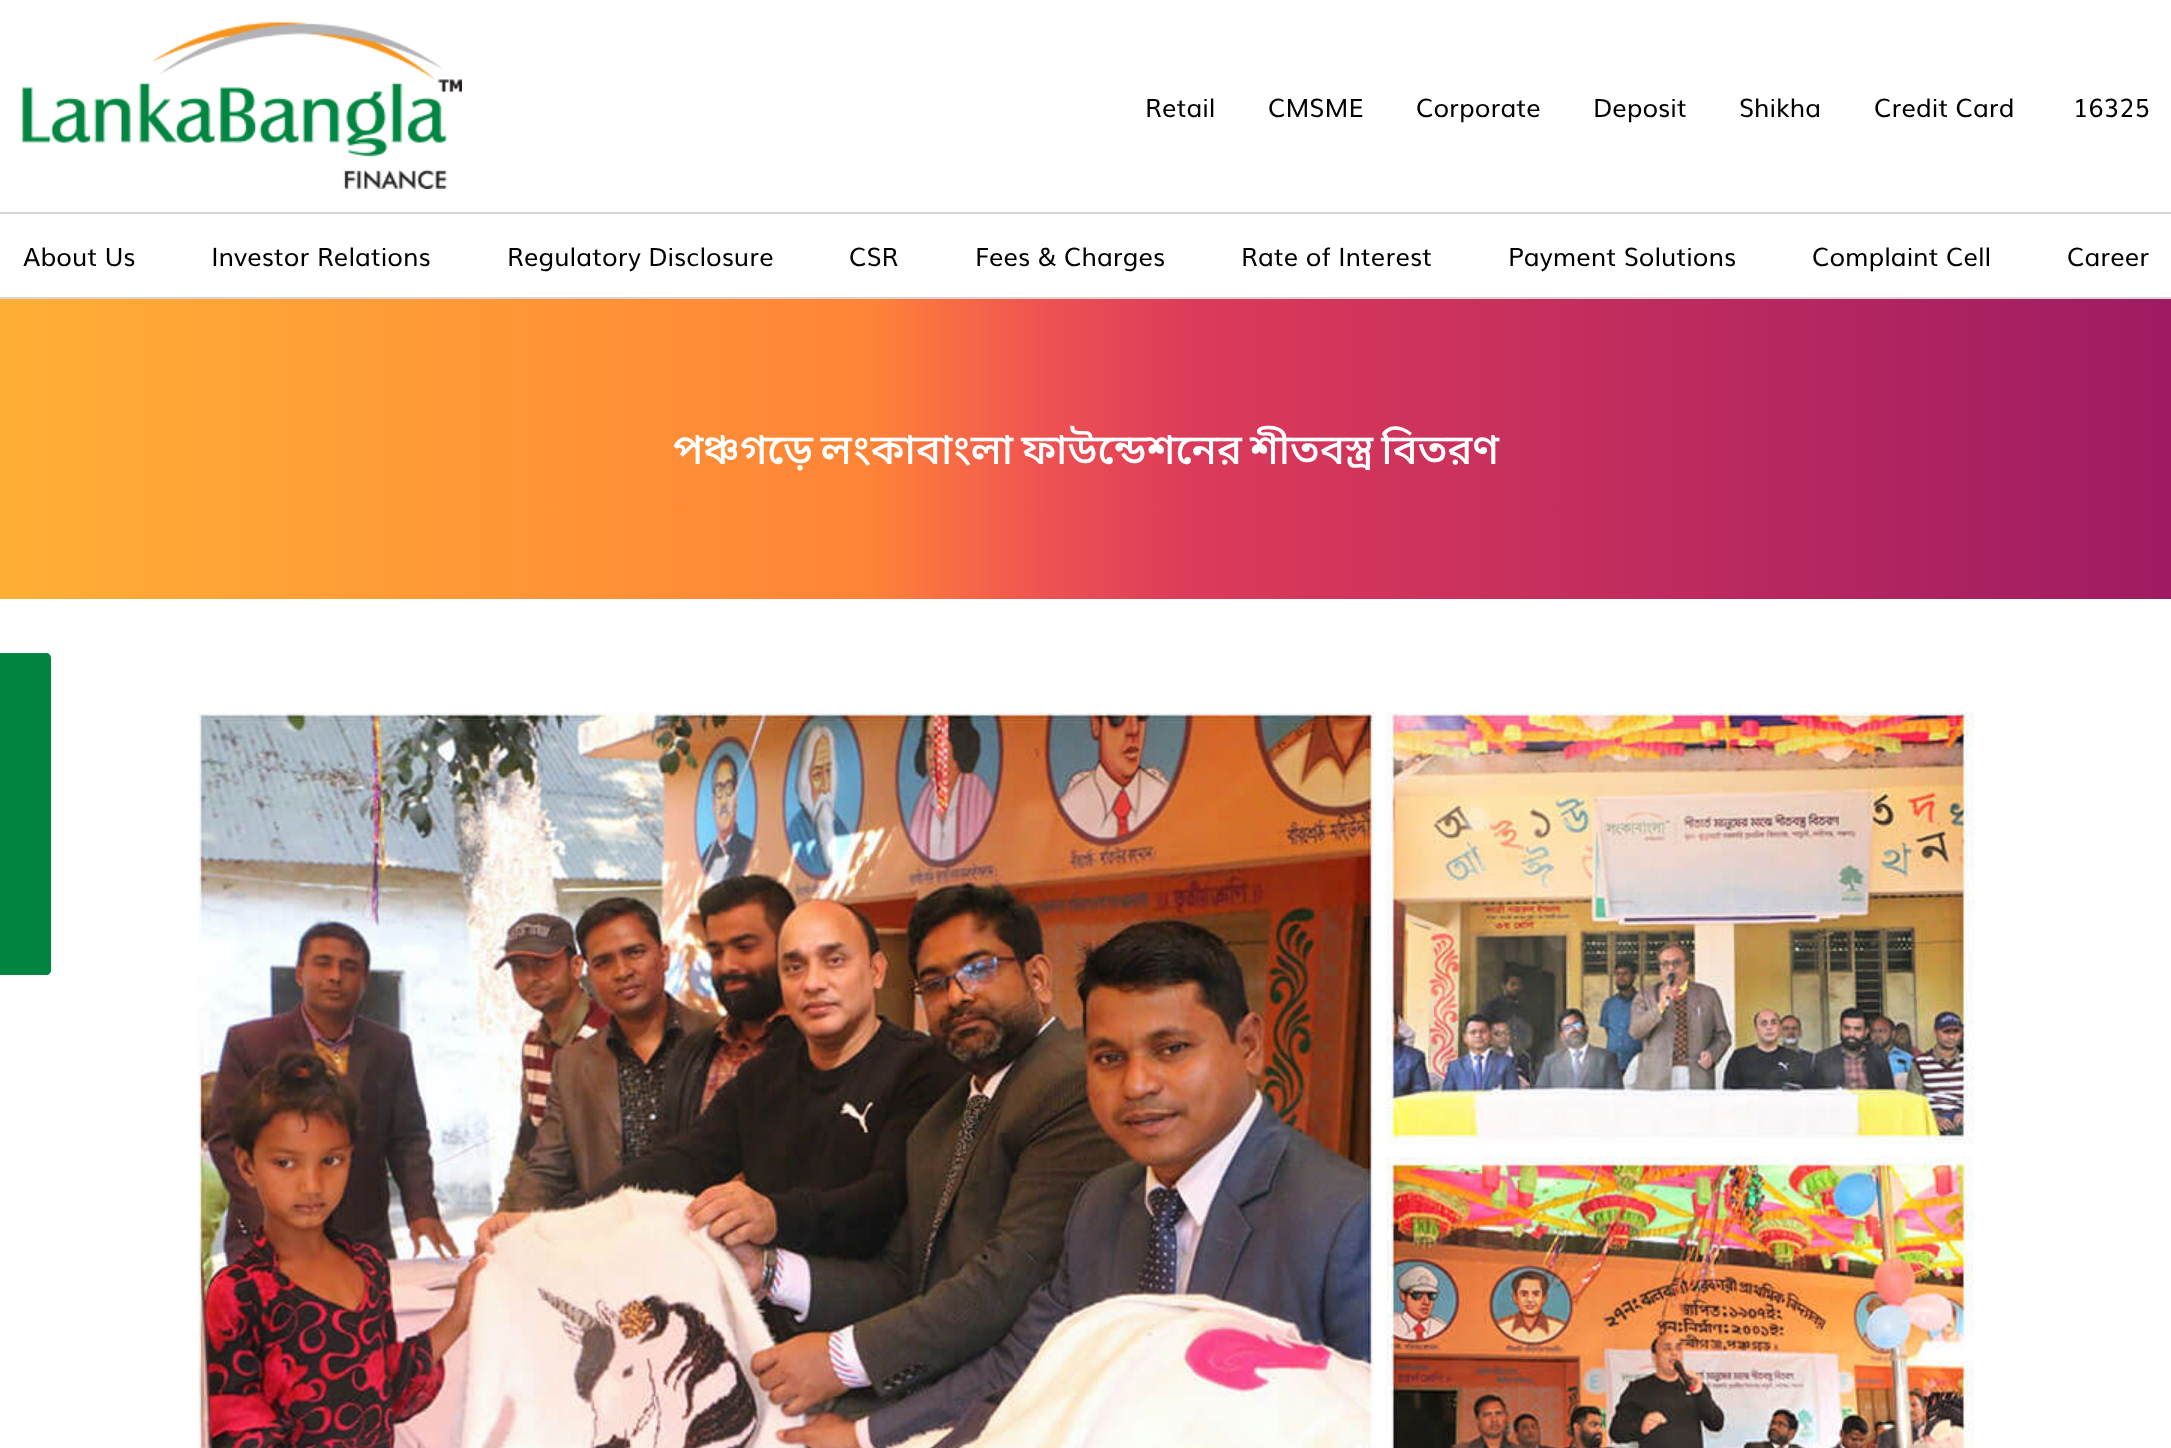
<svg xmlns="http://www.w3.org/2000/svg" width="2171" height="1448">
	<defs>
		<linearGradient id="g1" gradientUnits="userSpaceOnUse" x1="0" y1="449" x2="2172" y2="448"><stop offset="0" stop-color="#FFAF36" /><stop offset="0.4" stop-color="#FF8437" /><stop offset="0.48" stop-color="#EF5252" /><stop offset="0.55" stop-color="#DC3A5A" /><stop offset="1" stop-color="#9E1B63" /></linearGradient>
	</defs>
	<rect width="100%" height="100%" fill="#FFFFFF" />
	<image x="22" y="22" width="440" height="167" href="assets/img1.png" />
	<g font-family="Muli" font-size="25.5" fill="#000000">
		<text x="1145" y="117">Retail</text>
		<text x="1268" y="117">CMSME</text>
		<text x="1416" y="117">Corporate</text>
		<text x="1593" y="117">Deposit</text>
		<text x="1739" y="117">Shikha</text>
		<text x="1874" y="117">Credit Card</text>
		<text x="2073" y="117">16325</text>
	</g>
	<rect x="0" y="212" width="2171" height="2" fill="#D6D6D6" />
	<rect x="0" y="297" width="2171" height="2" fill="#D6D6D6" />
	<g font-family="Muli" font-size="25.5" fill="#000000">
		<text x="23" y="266">About Us</text>
		<text x="211" y="266">Investor Relations</text>
		<text x="507" y="266">Regulatory Disclosure</text>
		<text x="849" y="266">CSR</text>
		<text x="975" y="266">Fees &amp; Charges</text>
		<text x="1241" y="266">Rate of Interest</text>
		<text x="1508" y="266">Payment Solutions</text>
		<text x="1812" y="266">Complaint Cell</text>
		<text x="2067" y="266">Career</text>
	</g>
	<path d="M0 653H46C49 653 51 655 51 658V970C51 973 49 975 46 975H0Z" fill="#008641" />
	<rect x="0" y="299" width="2171" height="300" fill="url(#g1)" />
	<text x="673" y="464" word-spacing="-3" font-family="Noto Sans Bengali" font-size="42" font-weight="500" fill="#FFFFFF">পঞ্চগড়ে লংকাবাংলা ফাউন্ডেশনের শীতবস্ত্র বিতরণ</text>
	<image x="198" y="712" width="1777" height="736" href="assets/img2.png" />
</svg>
